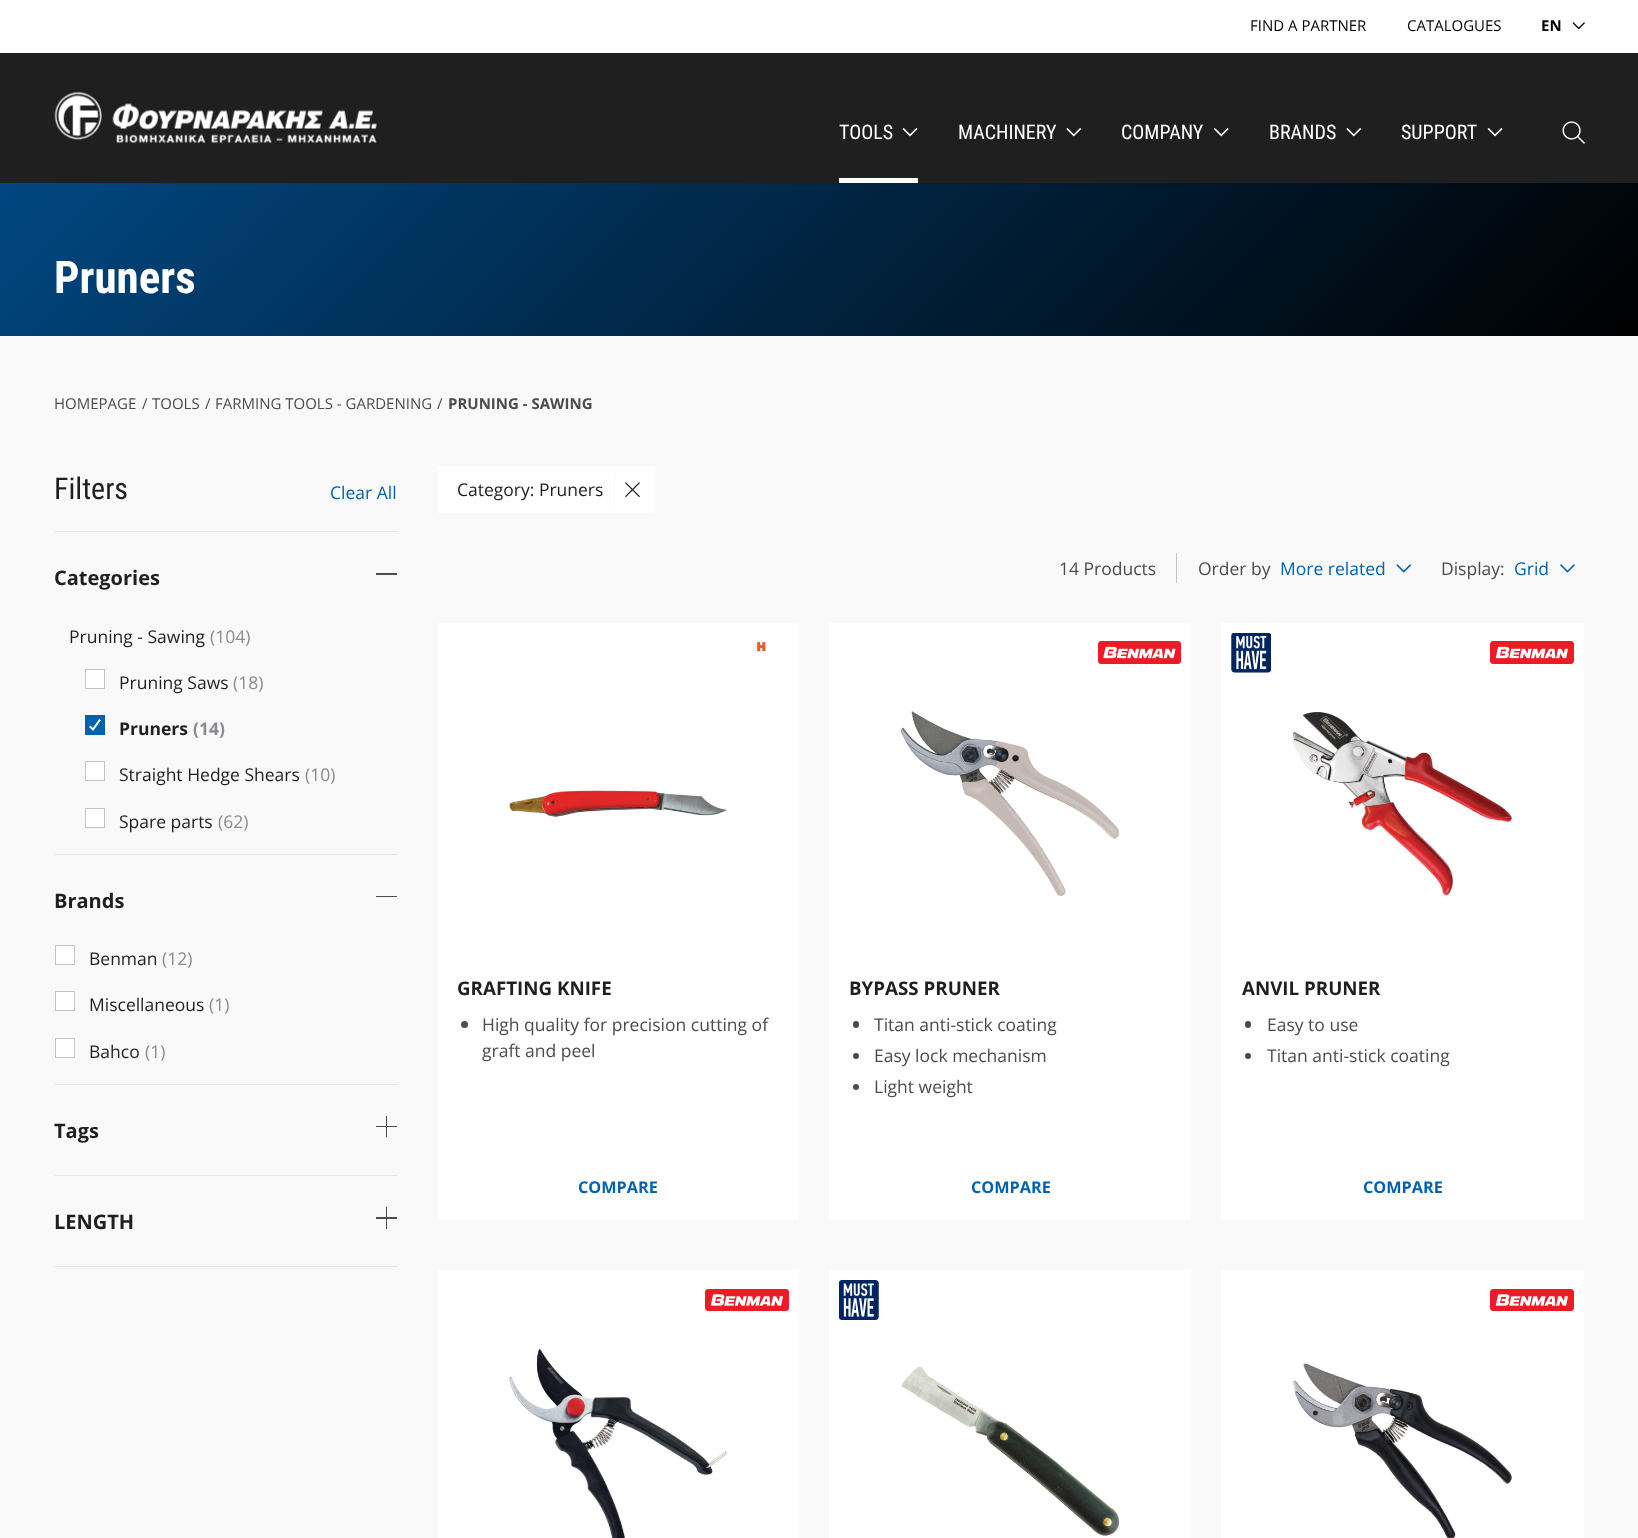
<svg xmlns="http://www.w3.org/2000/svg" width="1638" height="1538">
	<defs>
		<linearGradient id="g1" gradientUnits="userSpaceOnUse" x1="326" y1="-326" x2="1313" y2="662"><stop offset="0" stop-color="#014E8E" /><stop offset="1" stop-color="#000000" /></linearGradient>
	</defs>
	<rect width="100%" height="100%" fill="#F9F9F9" />
	<rect x="0" y="0" width="1638" height="53" fill="#FFFFFF" />
	<g font-family="Open Sans" font-size="15" fill="#000000">
		<text x="1250" y="31">FIND A PARTNER</text>
		<text x="1407" y="31">CATALOGUES</text>
	</g>
	<text x="1541" y="31" font-family="Open Sans" font-size="15" font-weight="700" fill="#000000">EN</text>
	<image x="1572" y="22" width="13" height="8" href="assets/img1.png" />
	<rect x="0" y="53" width="1638" height="130" fill="#1F1F1F" />
	<image x="54" y="92" width="323" height="51" href="assets/img2.png" />
	<text x="839" y="139" font-family="Roboto Condensed" font-size="20" fill="#FFFFFF">TOOLS</text>
	<image x="902" y="128" width="16" height="9" href="assets/img3.png" />
	<rect x="839" y="178" width="79" height="5" fill="#FFFFFF" />
	<text x="958" y="139" font-family="Roboto Condensed" font-size="20" fill="#FFFFFF">MACHINERY</text>
	<image x="1066" y="128" width="16" height="9" href="assets/img4.png" />
	<text x="1121" y="139" font-family="Roboto Condensed" font-size="20" fill="#FFFFFF">COMPANY</text>
	<image x="1213" y="128" width="16" height="9" href="assets/img5.png" />
	<text x="1269" y="139" font-family="Roboto Condensed" font-size="20" fill="#FFFFFF">BRANDS</text>
	<image x="1346" y="128" width="16" height="9" href="assets/img4.png" />
	<text x="1401" y="139" font-family="Roboto Condensed" font-size="20" fill="#FFFFFF">SUPPORT</text>
	<image x="1487" y="128" width="16" height="9" href="assets/img3.png" />
	<image x="1562" y="121" width="23" height="23" href="assets/img6.png" />
	<rect x="0" y="183" width="1638" height="153" fill="url(#g1)" />
	<text x="54" y="293" font-family="Roboto Condensed" font-size="45" font-weight="700" fill="#FFFFFF">Pruners</text>
	<g font-family="Open Sans" font-size="15" fill="#4C4C4E">
		<text x="54" y="409">HOMEPAGE</text>
		<text x="142" y="409">/</text>
		<text x="152" y="409">TOOLS</text>
		<text x="205" y="409">/</text>
		<text x="215" y="409">FARMING TOOLS - GARDENING</text>
		<text x="437" y="409">/</text>
	</g>
	<text x="448" y="409" font-family="Open Sans" font-size="15" font-weight="700" fill="#4C4C4E">PRUNING - SAWING</text>
	<rect x="55" y="531" width="343" height="1" fill="#E8E8E8" />
	<text x="54" y="499" font-family="Roboto Condensed" font-size="30" fill="#1F1F1F">Filters</text>
	<text x="330" y="499" font-family="Open Sans" font-size="17.5" fill="#0162B0">Clear All</text>
	<rect x="55" y="854" width="343" height="1" fill="#E8E8E8" />
	<text x="54" y="585" font-family="Open Sans" font-size="20" font-weight="700" fill="#1F1F1F">Categories</text>
	<rect x="376" y="573" width="21" height="2" fill="#4C4C4E" />
	<text x="69" y="643" font-family="Open Sans" font-size="17.5" fill="#1F1F1F">Pruning - Sawing</text>
	<text x="210" y="643" font-family="Open Sans" font-size="17.5" fill="#898B8E">(104)</text>
	<rect x="85.5" y="669.5" width="19" height="19" fill="#FFFFFF" stroke="#C1C3C9" />
	<text x="119" y="689" font-family="Open Sans" font-size="17.5" fill="#1F1F1F">Pruning Saws</text>
	<text x="233" y="689" font-family="Open Sans" font-size="17.5" fill="#898B8E">(18)</text>
	<rect x="85" y="715" width="20" height="20" fill="#0162B0" />
	<path d="M99.5 720.5L93 729.5L90.5 727" fill="none" stroke="#FFFFFF" stroke-width="2.1" stroke-linecap="square" />
	<text x="119" y="735" font-family="Open Sans" font-size="17.5" font-weight="700" fill="#1F1F1F">Pruners</text>
	<text x="193" y="735" font-family="Open Sans" font-size="17.5" font-weight="700" fill="#898B8E">(14)</text>
	<rect x="85.5" y="761.5" width="19" height="19" fill="#FFFFFF" stroke="#C1C3C9" />
	<text x="119" y="781" font-family="Open Sans" font-size="17.5" fill="#1F1F1F">Straight Hedge Shears</text>
	<text x="305" y="781" font-family="Open Sans" font-size="17.5" fill="#898B8E">(10)</text>
	<rect x="85.5" y="808.5" width="19" height="19" fill="#FFFFFF" stroke="#C1C3C9" />
	<text x="119" y="828" font-family="Open Sans" font-size="17.5" fill="#1F1F1F">Spare parts</text>
	<text x="218" y="828" font-family="Open Sans" font-size="17.5" fill="#898B8E">(62)</text>
	<rect x="55" y="1084" width="343" height="1" fill="#E8E8E8" />
	<text x="54" y="908" font-family="Open Sans" font-size="20" font-weight="700" fill="#1F1F1F">Brands</text>
	<rect x="376" y="896" width="21" height="1" fill="#4C4C4E" />
	<rect x="55.5" y="945.5" width="19" height="19" fill="#FFFFFF" stroke="#C1C3C9" />
	<text x="89" y="965" font-family="Open Sans" font-size="17.5" fill="#1F1F1F">Benman</text>
	<text x="162" y="965" font-family="Open Sans" font-size="17.5" fill="#898B8E">(12)</text>
	<rect x="55.5" y="991.5" width="19" height="19" fill="#FFFFFF" stroke="#C1C3C9" />
	<text x="89" y="1011" font-family="Open Sans" font-size="17.5" fill="#1F1F1F">Miscellaneous</text>
	<text x="209" y="1011" font-family="Open Sans" font-size="17.5" fill="#898B8E">(1)</text>
	<rect x="55.5" y="1038.5" width="19" height="19" fill="#FFFFFF" stroke="#C1C3C9" />
	<text x="89" y="1058" font-family="Open Sans" font-size="17.5" fill="#1F1F1F">Bahco</text>
	<text x="145" y="1058" font-family="Open Sans" font-size="17.5" fill="#898B8E">(1)</text>
	<rect x="55" y="1175" width="343" height="1" fill="#E8E8E8" />
	<text x="54" y="1138" font-family="Open Sans" font-size="20" font-weight="700" fill="#1F1F1F">Tags</text>
	<rect x="376" y="1126" width="21" height="1" fill="#4C4C4E" />
	<rect x="386" y="1116" width="1" height="21" fill="#4C4C4E" />
	<rect x="55" y="1266" width="343" height="1" fill="#E8E8E8" />
	<text x="54" y="1229" font-family="Open Sans" font-size="20" font-weight="700" fill="#1F1F1F">LENGTH</text>
	<rect x="376" y="1217" width="21" height="2" fill="#4C4C4E" />
	<rect x="386" y="1207" width="1" height="22" fill="#4C4C4E" />
	<rect x="438" y="466" width="217" height="47" fill="#FFFFFF" />
	<text x="457" y="496" font-family="Open Sans" font-size="17.5" fill="#1F1F1F">Category: Pruners</text>
	<rect x="614" y="473" width="1" height="35" fill="#F9F9F9" />
	<image x="625" y="482" width="15" height="16" href="assets/img7.png" />
	<rect x="1176" y="553" width="1" height="30" fill="#C1C3C9" />
	<g font-family="Open Sans" font-size="17.5" fill="#4C4C4E">
		<text x="1059" y="575">14 Products</text>
		<text x="1198" y="575">Order by</text>
	</g>
	<text x="1280" y="575" font-family="Open Sans" font-size="17.5" fill="#0162B0">More related</text>
	<image x="1396" y="564" width="16" height="9" href="assets/img8.png" />
	<text x="1441" y="575" font-family="Open Sans" font-size="17.5" fill="#4C4C4E">Display:</text>
	<text x="1514" y="575" font-family="Open Sans" font-size="17.5" fill="#0162B0">Grid</text>
	<image x="1560" y="564" width="15" height="9" href="assets/img9.png" />
	<rect x="438" y="623" width="361" height="597" fill="#FFFFFF" />
	<image x="757" y="642" width="9" height="10" href="assets/img10.png" />
	<image x="509" y="790" width="218" height="27" href="assets/img11.png" />
	<text x="457" y="995" font-family="Open Sans" font-size="18.75" font-weight="700" fill="#1F1F1F">GRAFTING KNIFE</text>
	<circle cx="464.5" cy="1024.5" r="3.5" fill="#4C4C4E" />
	<g font-family="Open Sans" font-size="17.5" fill="#4C4C4E">
		<text x="482" y="1031">High quality for precision cutting of</text>
		<text x="482" y="1057">graft and peel</text>
	</g>
	<text x="578" y="1193" font-family="Open Sans" font-size="16.25" font-weight="700" fill="#0162B0">COMPARE</text>
	<rect x="829" y="623" width="362" height="597" fill="#FFFFFF" />
	<image x="1098" y="641" width="83" height="23" href="assets/img12.png" />
	<image x="900" y="711" width="220" height="185" href="assets/img13.png" />
	<text x="849" y="995" font-family="Open Sans" font-size="18.75" font-weight="700" fill="#1F1F1F">BYPASS PRUNER</text>
	<rect x="853" y="1021" width="6" height="7" rx="3" fill="#4C4C4E" />
	<text x="874" y="1031" font-family="Open Sans" font-size="17.5" fill="#4C4C4E">Titan anti-stick coating</text>
	<circle cx="856" cy="1056" r="3" fill="#4C4C4E" />
	<text x="874" y="1062" font-family="Open Sans" font-size="17.5" fill="#4C4C4E">Easy lock mechanism</text>
	<circle cx="856" cy="1087" r="3" fill="#4C4C4E" />
	<text x="874" y="1093" font-family="Open Sans" font-size="17.5" fill="#4C4C4E">Light weight</text>
	<text x="971" y="1193" font-family="Open Sans" font-size="16.25" font-weight="700" fill="#0162B0">COMPARE</text>
	<rect x="1221" y="623" width="363" height="597" fill="#FFFFFF" />
	<image x="1231" y="633" width="40" height="40" href="assets/img14.png" />
	<image x="1490" y="641" width="84" height="23" href="assets/img15.png" />
	<image x="1293" y="712" width="219" height="184" href="assets/img16.png" />
	<text x="1242" y="995" font-family="Open Sans" font-size="18.75" font-weight="700" fill="#1F1F1F">ANVIL PRUNER</text>
	<rect x="1245" y="1021" width="6" height="7" rx="3" fill="#4C4C4E" />
	<text x="1267" y="1031" font-family="Open Sans" font-size="17.5" fill="#4C4C4E">Easy to use</text>
	<circle cx="1248" cy="1056" r="3" fill="#4C4C4E" />
	<text x="1267" y="1062" font-family="Open Sans" font-size="17.5" fill="#4C4C4E">Titan anti-stick coating</text>
	<text x="1363" y="1193" font-family="Open Sans" font-size="16.25" font-weight="700" fill="#0162B0">COMPARE</text>
	<rect x="438" y="1270" width="361" height="268" fill="#FFFFFF" />
	<image x="705" y="1289" width="84" height="22" href="assets/img17.png" />
	<image x="509" y="1348" width="218" height="190" href="assets/img18.png" />
	<rect x="829" y="1270" width="362" height="268" fill="#FFFFFF" />
	<image x="839" y="1280" width="40" height="40" href="assets/img19.png" />
	<image x="901" y="1366" width="219" height="170" href="assets/img20.png" />
	<rect x="1221" y="1270" width="363" height="268" fill="#FFFFFF" />
	<image x="1490" y="1289" width="84" height="22" href="assets/img17.png" />
	<image x="1293" y="1363" width="219" height="175" href="assets/img21.png" />
</svg>
